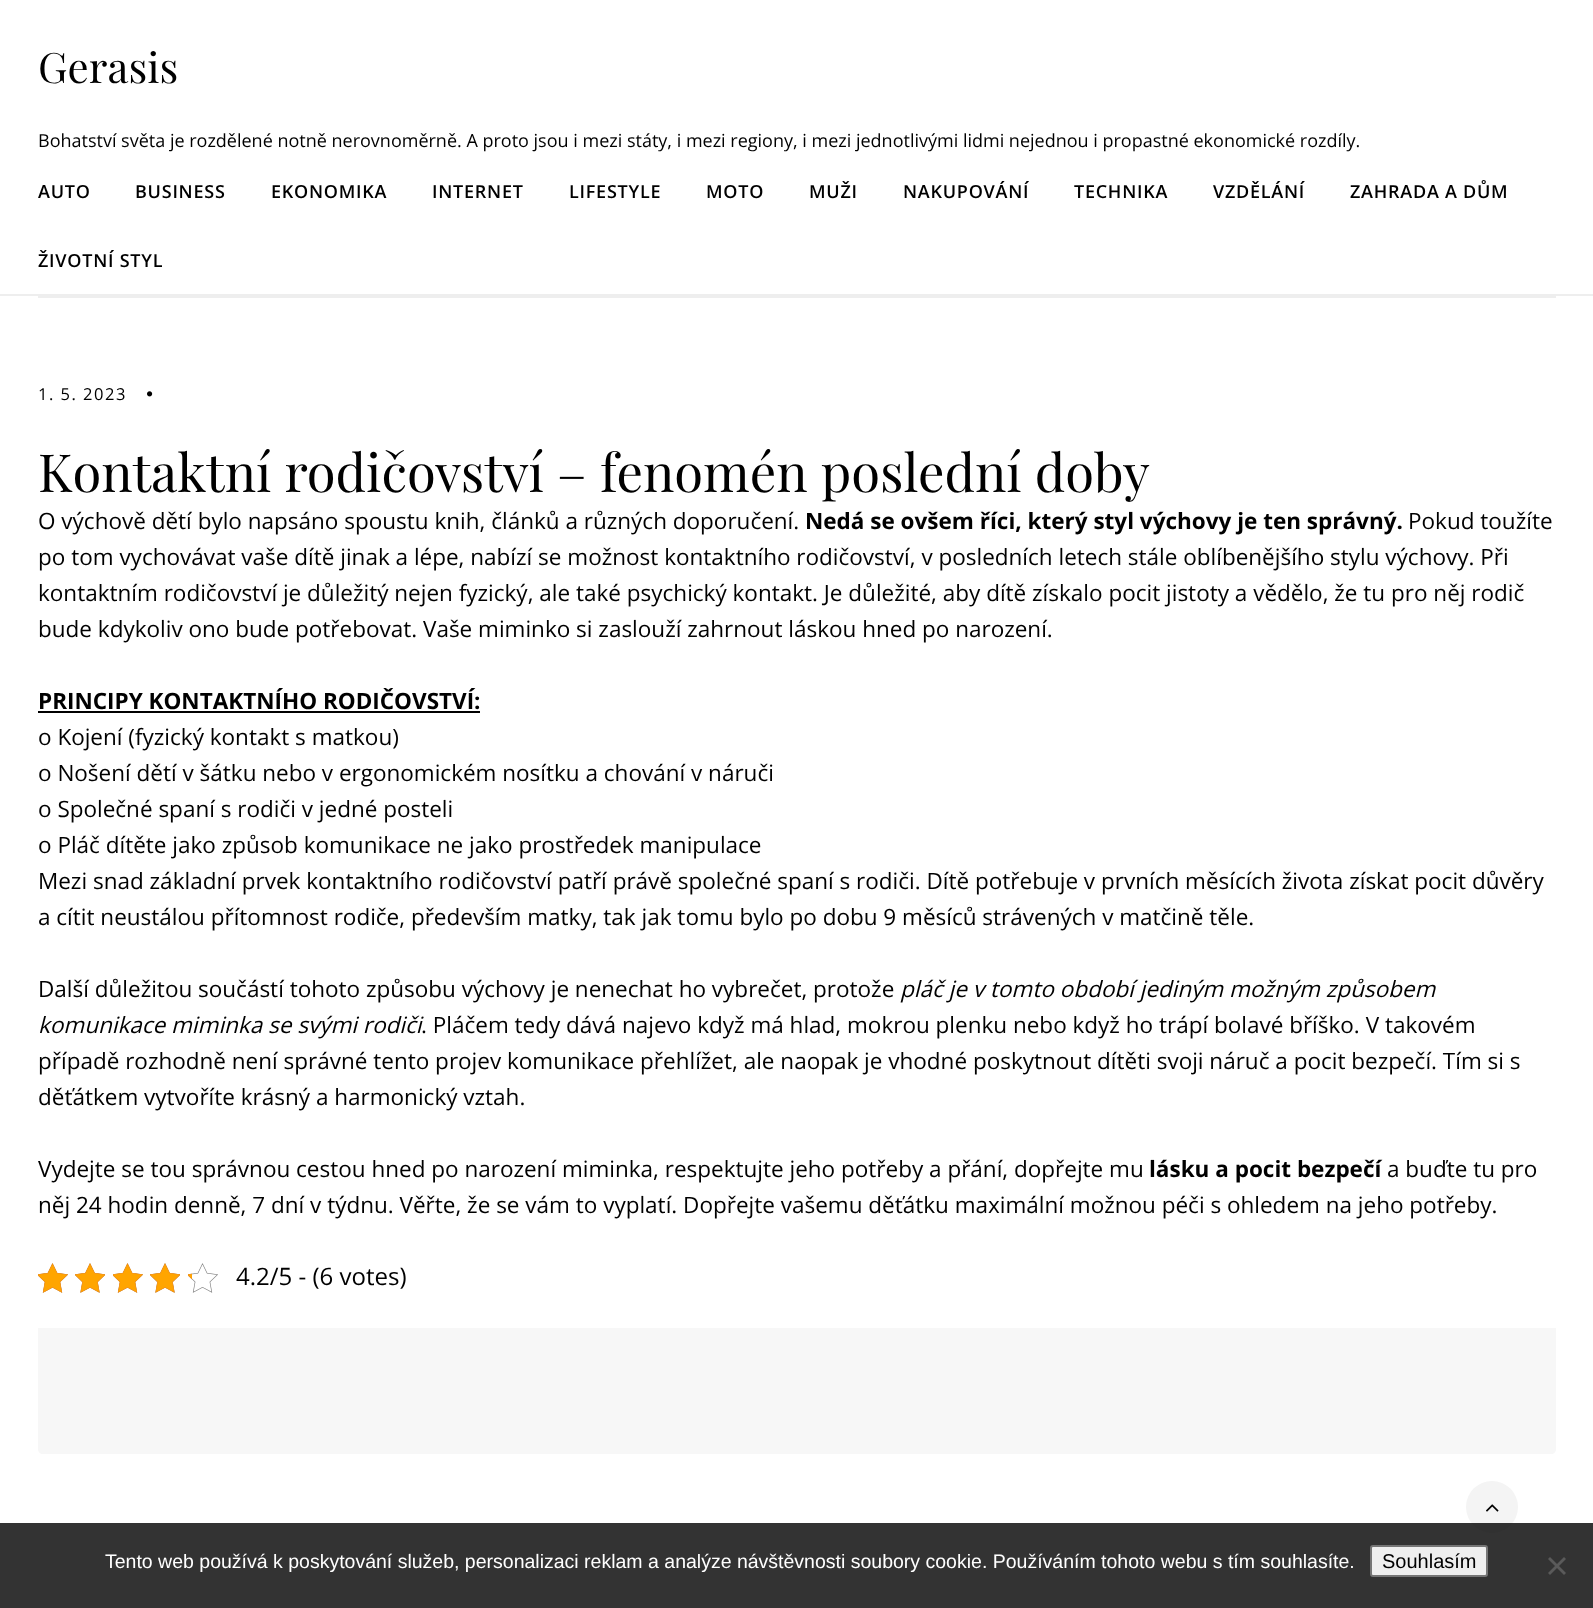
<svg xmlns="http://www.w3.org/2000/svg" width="1593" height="1608">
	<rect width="100%" height="100%" fill="#FFFFFF" />
	<rect x="0" y="294" width="1593" height="2" fill="#EEEEEE" />
	<text x="38" y="83" font-family="Playfair Display" font-size="42" fill="#000000">Gerasis</text>
	<text x="38" y="147" font-family="Open Sans" font-size="18" fill="#000000">Bohatství světa je rozdělené notně nerovnoměrně. A proto jsou i mezi státy, i mezi regiony, i mezi jednotlivými lidmi nejednou i propastné ekonomické rozdíly.</text>
	<g font-family="Open Sans" font-size="18" font-weight="600" letter-spacing="0.75" fill="#000000">
		<text x="38" y="198">AUTO</text>
		<text x="135" y="198">BUSINESS</text>
		<text x="271" y="198">EKONOMIKA</text>
		<text x="432" y="198">INTERNET</text>
		<text x="569" y="198">LIFESTYLE</text>
		<text x="706" y="198">MOTO</text>
		<text x="809" y="198">MUŽI</text>
		<text x="903" y="198">NAKUPOVÁNÍ</text>
		<text x="1074" y="198">TECHNIKA</text>
		<text x="1213" y="198">VZDĚLÁNÍ</text>
		<text x="1350" y="198">ZAHRADA A DŮM</text>
		<text x="38" y="267">ŽIVOTNÍ STYL</text>
	</g>
	<rect x="38" y="296" width="1518" height="2" fill="#EEEEEE" />
	<text x="38" y="400" font-family="Open Sans" font-size="16.5" letter-spacing="1.5" fill="#000000">1. 5. 2023</text>
	<image x="147" y="391" width="6" height="6" href="assets/img1.png" />
	<text x="38" y="492" font-family="Playfair Display" font-size="52.5" fill="#000000">Kontaktní rodičovství – fenomén poslední doby</text>
	<text x="38" y="529" font-family="Open Sans" font-size="22.5" fill="#000000">O výchově dětí bylo napsáno spoustu knih, článků a různých doporučení.</text>
	<text x="805" y="529" font-family="Open Sans" font-size="22.5" font-weight="700" fill="#000000">Nedá se ovšem říci, který styl výchovy je ten správný.</text>
	<g font-family="Open Sans" font-size="22.5" fill="#000000">
		<text x="1408" y="529">Pokud toužíte</text>
		<text x="38" y="565">po tom vychovávat vaše dítě jinak a lépe, nabízí se možnost kontaktního rodičovství, v posledních letech stále oblíbenějšího stylu výchovy. Při</text>
		<text x="38" y="601">kontaktním rodičovství je důležitý nejen fyzický, ale také psychický kontakt. Je důležité, aby dítě získalo pocit jistoty a vědělo, že tu pro něj rodič</text>
		<text x="38" y="637">bude kdykoliv ono bude potřebovat. Vaše miminko si zaslouží zahrnout láskou hned po narození.</text>
	</g>
	<text x="38" y="709" font-family="Open Sans" font-size="22.5" font-weight="700" fill="#000000">PRINCIPY KONTAKTNÍHO RODIČOVSTVÍ:</text>
	<rect x="38" y="711" width="442" height="2" fill="#000000" />
	<g font-family="Open Sans" font-size="22.5" fill="#000000">
		<text x="38" y="745">o Kojení (fyzický kontakt s matkou)</text>
		<text x="38" y="781">o Nošení dětí v šátku nebo v ergonomickém nosítku a chování v náruči</text>
		<text x="38" y="817">o Společné spaní s rodiči v jedné posteli</text>
		<text x="38" y="853">o Pláč dítěte jako způsob komunikace ne jako prostředek manipulace</text>
		<text x="38" y="889">Mezi snad základní prvek kontaktního rodičovství patří právě společné spaní s rodiči. Dítě potřebuje v prvních měsících života získat pocit důvěry</text>
		<text x="38" y="925">a cítit neustálou přítomnost rodiče, především matky, tak jak tomu bylo po dobu 9 měsíců strávených v matčině těle.</text>
		<text x="38" y="997">Další důležitou součástí tohoto způsobu výchovy je nenechat ho vybrečet, protože</text>
	</g>
	<g font-family="Open Sans" font-size="22.5" font-style="italic" fill="#000000">
		<text x="900" y="997">pláč je v tomto období jediným možným způsobem</text>
		<text x="38" y="1033">komunikace miminka se svými rodiči</text>
	</g>
	<g font-family="Open Sans" font-size="22.5" fill="#000000">
		<text x="421" y="1033">. Pláčem tedy dává najevo když má hlad, mokrou plenku nebo když ho trápí bolavé bříško. V takovém</text>
		<text x="38" y="1069">případě rozhodně není správné tento projev komunikace přehlížet, ale naopak je vhodné poskytnout dítěti svoji náruč a pocit bezpečí. Tím si s</text>
		<text x="38" y="1105">děťátkem vytvoříte krásný a harmonický vztah.</text>
		<text x="38" y="1177">Vydejte se tou správnou cestou hned po narození miminka, respektujte jeho potřeby a přání, dopřejte mu</text>
	</g>
	<text x="1149" y="1177" font-family="Open Sans" font-size="22.5" font-weight="700" fill="#000000">lásku a pocit bezpečí</text>
	<g font-family="Open Sans" font-size="22.5" fill="#000000">
		<text x="1387" y="1177">a buďte tu pro</text>
		<text x="38" y="1213">něj 24 hodin denně, 7 dní v týdnu. Věřte, že se vám to vyplatí. Dopřejte vašemu děťátku maximální možnou péči s ohledem na jeho potřeby.</text>
	</g>
	<image x="38" y="1263" width="30" height="30" href="assets/img2.png" />
	<image x="75" y="1263" width="30" height="30" href="assets/img3.png" />
	<image x="113" y="1263" width="30" height="30" href="assets/img2.png" />
	<image x="150" y="1263" width="30" height="30" href="assets/img3.png" />
	<image x="188" y="1263" width="30" height="30" href="assets/img2.png" />
	<image x="38" y="1263" width="30" height="30" href="assets/img4.png" />
	<image x="75" y="1263" width="30" height="30" href="assets/img5.png" />
	<image x="113" y="1263" width="30" height="30" href="assets/img4.png" />
	<image x="150" y="1263" width="30" height="30" href="assets/img5.png" />
	<image x="188" y="1273" width="4" height="7" href="assets/img6.png" />
	<text x="236" y="1285" font-family="Open Sans" font-size="24" fill="#000000">4.2/5 - (6 votes)</text>
	<path d="M38 1328H1556V1449C1556 1452 1554 1454 1551 1454H43C40 1454 38 1452 38 1449Z" fill="#F7F7F7" />
	<circle cx="1492" cy="1507" r="26" fill="#F4F4F4" />
	<image x="1486" y="1504" width="13" height="8" href="assets/img7.png" />
	<rect x="0" y="1523" width="1593" height="85" fill="#000000" fill-opacity="0.8" />
	<text x="105" y="1568" font-family="Liberation Sans" font-size="19.5" fill="#FFFFFF">Tento web používá k poskytování služeb, personalizaci reklam a analýze návštěvnosti soubory cookie. Používáním tohoto webu s tím souhlasíte.</text>
	<rect x="1371" y="1546" width="116" height="30" rx="2" fill="#EFEFEF" stroke="#767676" stroke-width="2" />
	<text x="1382" y="1568" font-family="Liberation Sans" font-size="20" fill="#000000">Souhlasím</text>
	<path d="M1564 1557L1566 1559L1550 1575L1548 1573Z" fill="#5A5A5A" />
	<path d="M1548 1559L1550 1557L1566 1573L1564 1575Z" fill="#5A5A5A" />
</svg>
